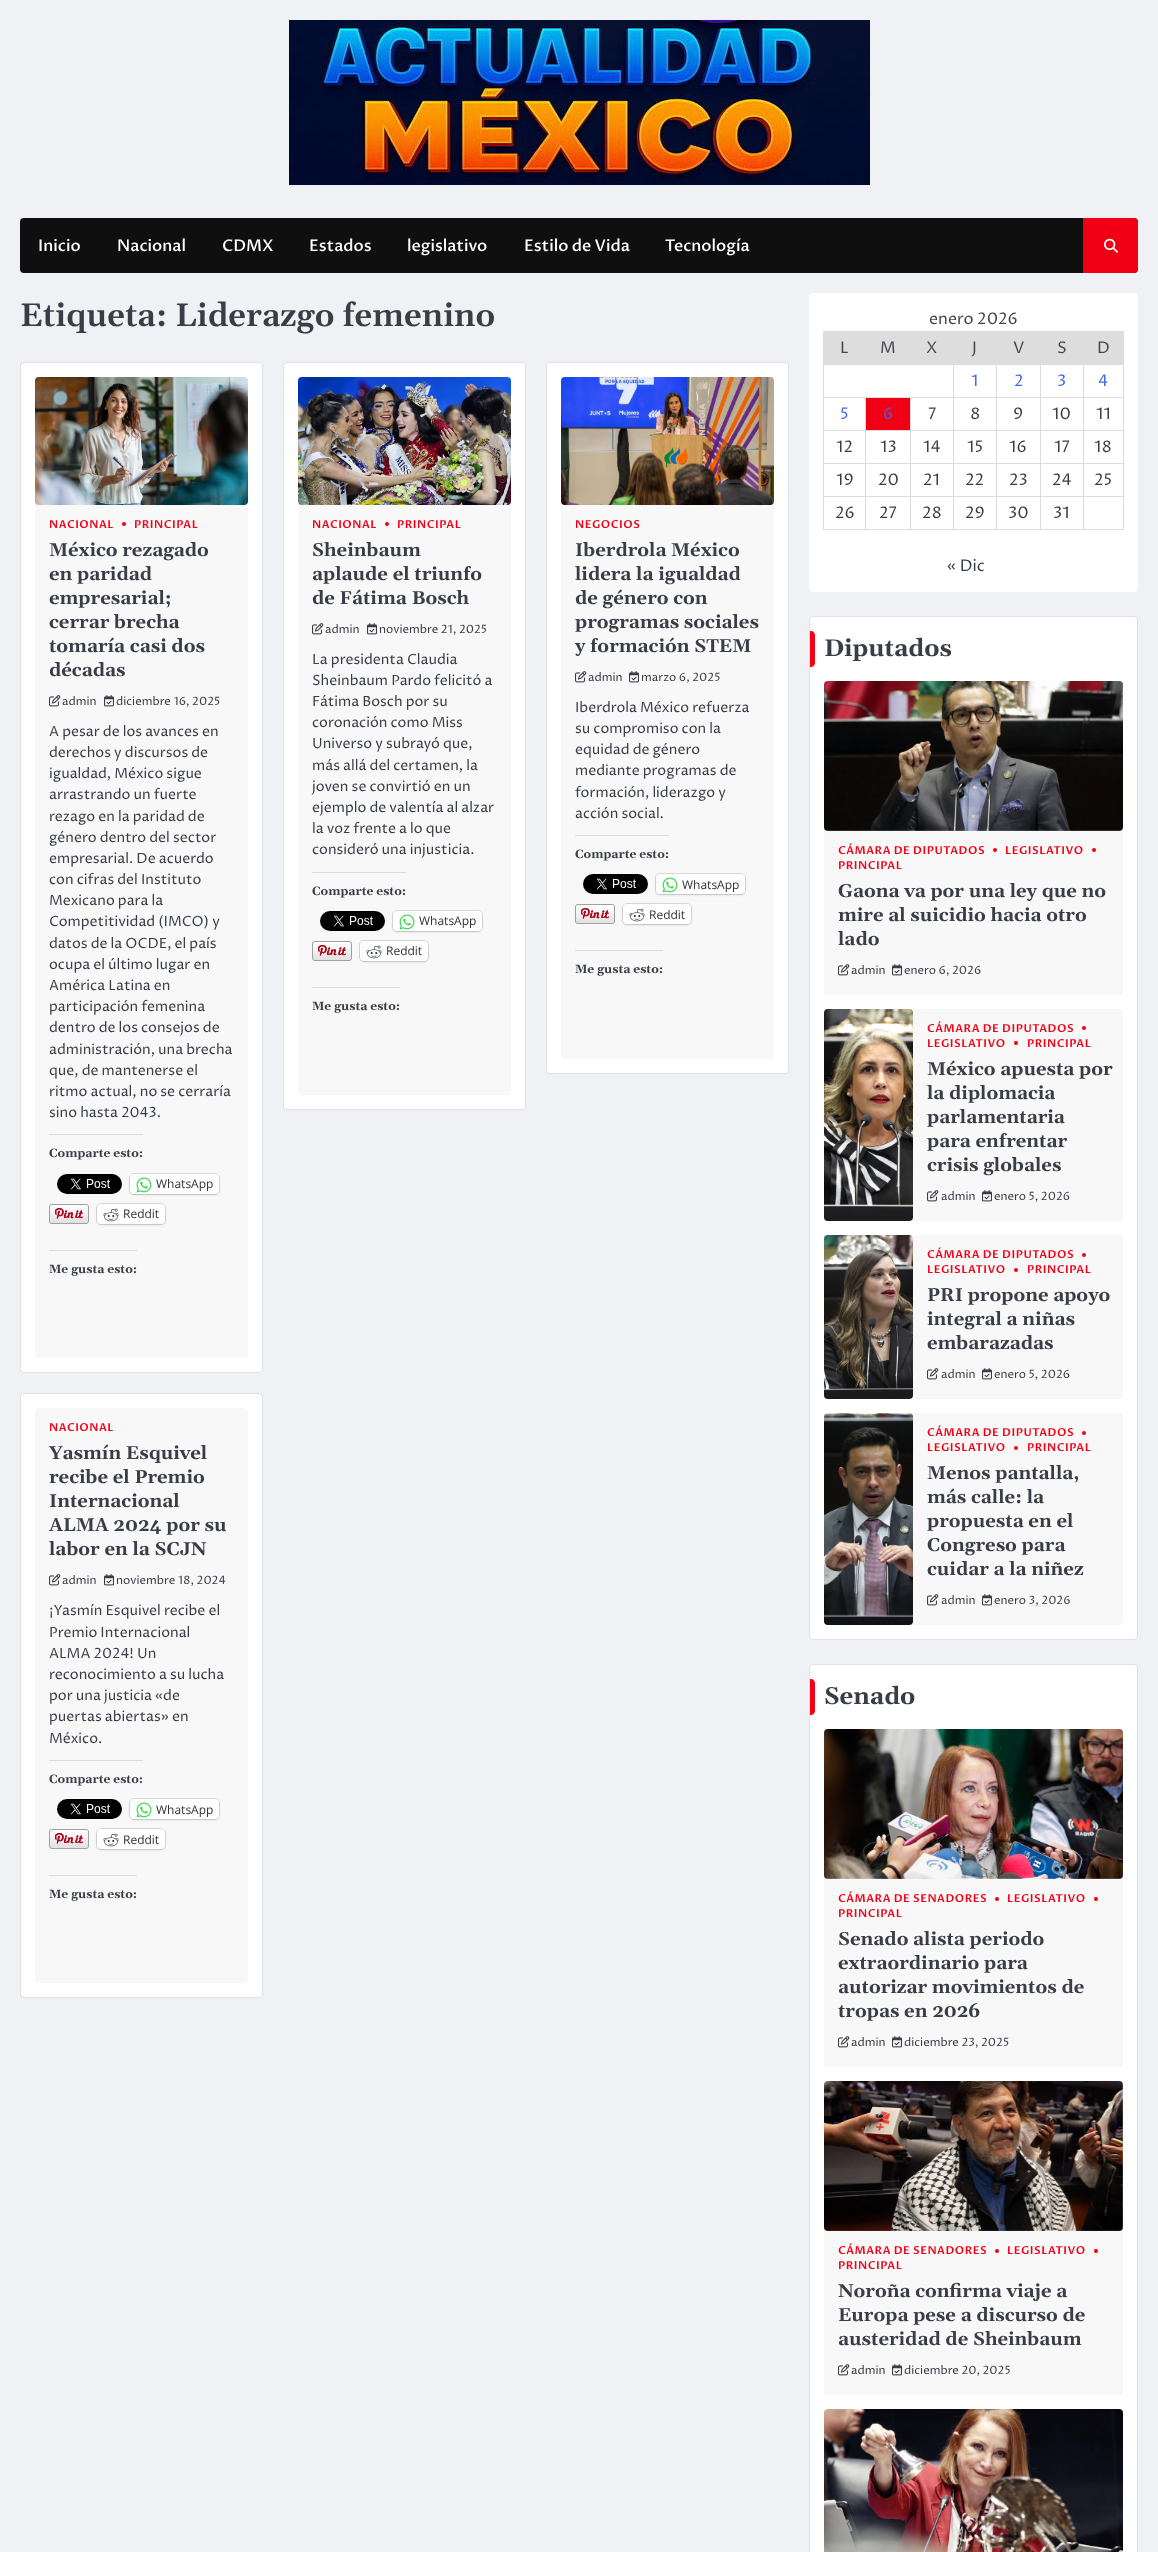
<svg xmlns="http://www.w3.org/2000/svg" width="1158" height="2552">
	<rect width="100%" height="100%" fill="#F0F1F4" />
	<image x="289" y="20" width="581" height="165" href="assets/img1.png" />
	<rect x="20" y="218" width="1118" height="55" rx="4" fill="#100F0F" />
	<g font-family="Proza Libre" font-size="16" font-weight="500" fill="#FFFFFF">
		<text x="38" y="251">Inicio</text>
		<text x="117" y="251">Nacional</text>
		<text x="222" y="251">CDMX</text>
		<text x="309" y="251">Estados</text>
		<text x="407" y="251">legislativo</text>
		<text x="524" y="251">Estilo de Vida</text>
		<text x="665" y="251">Tecnología</text>
	</g>
	<path d="M1083 218H1134C1136 218 1138 220 1138 222V269C1138 271 1136 273 1134 273H1083Z" fill="#F10015" />
	<image x="1104" y="238" width="14" height="15" href="assets/img2.png" />
	<text x="20" y="326" font-family="Gelasio" font-size="32.5" font-weight="600" fill="#393E46">Etiqueta: Liderazgo femenino</text>
	<rect x="20.5" y="362.5" width="242" height="1010" rx="3.5" fill="#FFFFFF" stroke="#E1E1E1" />
	<rect x="35" y="377" width="213" height="981" rx="4" fill="#F8F8F9" />
	<image x="35" y="377" width="213" height="128" href="assets/img3.png" />
	<text x="49" y="528" font-family="Proza Libre" font-size="11" font-weight="600" letter-spacing="0.5" fill="#F10015">NACIONAL</text>
	<circle cx="124" cy="524" r="2" fill="#F10015" />
	<text x="134" y="528" font-family="Proza Libre" font-size="11" font-weight="600" letter-spacing="0.5" fill="#F10015">PRINCIPAL</text>
	<g font-family="Gelasio" font-size="18.5" font-weight="700" fill="#393E46">
		<text x="49" y="556">México rezagado</text>
		<text x="49" y="580">en paridad</text>
		<text x="49" y="604">empresarial;</text>
		<text x="49" y="628">cerrar brecha</text>
		<text x="49" y="652">tomaría casi dos</text>
		<text x="49" y="676">décadas</text>
	</g>
	<image x="49" y="695" width="12" height="12" href="assets/img4.png" />
	<text x="62" y="705" font-family="Proza Libre" font-size="11.5" fill="#393E46">admin</text>
	<image x="104" y="695" width="10" height="12" href="assets/img5.png" />
	<text x="116" y="705" font-family="Proza Libre" font-size="11.5" fill="#393E46">diciembre 16, 2025</text>
	<g font-family="Proza Libre" font-size="14.1" fill="#393E46">
		<text x="49" y="736">A pesar de los avances en</text>
		<text x="49" y="757">derechos y discursos de</text>
		<text x="49" y="778">igualdad, México sigue</text>
		<text x="49" y="799">arrastrando un fuerte</text>
		<text x="49" y="821">rezago en la paridad de</text>
		<text x="49" y="842">género dentro del sector</text>
		<text x="49" y="863">empresarial. De acuerdo</text>
		<text x="49" y="884">con cifras del Instituto</text>
		<text x="49" y="905">Mexicano para la</text>
		<text x="49" y="926">Competitividad (IMCO) y</text>
		<text x="49" y="948">datos de la OCDE, el país</text>
		<text x="49" y="969">ocupa el último lugar en</text>
		<text x="49" y="990">América Latina en</text>
		<text x="49" y="1011">participación femenina</text>
		<text x="49" y="1032">dentro de los consejos de</text>
		<text x="49" y="1054">administración, una brecha</text>
		<text x="49" y="1075">que, de mantenerse el</text>
		<text x="49" y="1096">ritmo actual, no se cerraría</text>
		<text x="49" y="1117">sino hasta 2043.</text>
	</g>
	<rect x="49" y="1134" width="94" height="1" fill="#DCDCDE" />
	<text x="49" y="1157" font-family="Gelasio" font-size="12" font-weight="700" fill="#393E46">Comparte esto:</text>
	<image x="57" y="1174" width="65" height="20" href="assets/img6.png" />
	<rect x="129.5" y="1173.5" width="90" height="21" rx="4.5" fill="none" stroke="#DADADB" />
	<rect x="130" y="1175" width="89" height="20" rx="4" fill="#000000" fill-opacity="0.12" filter="blur(1px)" />
	<rect x="130" y="1174" width="89" height="20" rx="4" fill="#FFFFFF" />
	<image x="136" y="1177" width="16" height="16" href="assets/img7.png" />
	<text x="156" y="1188" font-family="Open Sans" font-size="12" fill="#2C3338">WhatsApp</text>
	<image x="49" y="1204" width="40" height="20" href="assets/img8.png" />
	<rect x="96.5" y="1203.5" width="69" height="21" rx="4.5" fill="none" stroke="#DADADB" />
	<rect x="97" y="1205" width="68" height="20" rx="4" fill="#000000" fill-opacity="0.12" filter="blur(1px)" />
	<rect x="97" y="1204" width="68" height="20" rx="4" fill="#FFFFFF" />
	<image x="103" y="1208" width="16" height="14" href="assets/img9.png" />
	<text x="123" y="1218" font-family="Open Sans" font-size="12" fill="#2C3338">Reddit</text>
	<rect x="49" y="1250" width="88" height="1" fill="#DCDCDE" />
	<text x="49" y="1273" font-family="Gelasio" font-size="12" font-weight="700" fill="#393E46">Me gusta esto:</text>
	<rect x="283.5" y="362.5" width="242" height="747" rx="3.5" fill="#FFFFFF" stroke="#E1E1E1" />
	<rect x="298" y="377" width="213" height="718" rx="4" fill="#F8F8F9" />
	<image x="298" y="377" width="213" height="128" href="assets/img10.png" />
	<text x="312" y="528" font-family="Proza Libre" font-size="11" font-weight="600" letter-spacing="0.5" fill="#F10015">NACIONAL</text>
	<circle cx="387" cy="524" r="2" fill="#F10015" />
	<text x="397" y="528" font-family="Proza Libre" font-size="11" font-weight="600" letter-spacing="0.5" fill="#F10015">PRINCIPAL</text>
	<g font-family="Gelasio" font-size="18.5" font-weight="700" fill="#393E46">
		<text x="312" y="556">Sheinbaum</text>
		<text x="312" y="580">aplaude el triunfo</text>
		<text x="312" y="604">de Fátima Bosch</text>
	</g>
	<image x="312" y="623" width="12" height="12" href="assets/img4.png" />
	<text x="325" y="633" font-family="Proza Libre" font-size="11.5" fill="#393E46">admin</text>
	<image x="367" y="623" width="10" height="12" href="assets/img5.png" />
	<text x="379" y="633" font-family="Proza Libre" font-size="11.5" fill="#393E46">noviembre 21, 2025</text>
	<g font-family="Proza Libre" font-size="14.1" fill="#393E46">
		<text x="312" y="664">La presidenta Claudia</text>
		<text x="312" y="685">Sheinbaum Pardo felicitó a</text>
		<text x="312" y="706">Fátima Bosch por su</text>
		<text x="312" y="727">coronación como Miss</text>
		<text x="312" y="748">Universo y subrayó que,</text>
		<text x="312" y="770">más allá del certamen, la</text>
		<text x="312" y="791">joven se convirtió en un</text>
		<text x="312" y="812">ejemplo de valentía al alzar</text>
		<text x="312" y="833">la voz frente a lo que</text>
		<text x="312" y="854">consideró una injusticia.</text>
	</g>
	<rect x="312" y="872" width="94" height="1" fill="#DCDCDE" />
	<text x="312" y="895" font-family="Gelasio" font-size="12" font-weight="700" fill="#393E46">Comparte esto:</text>
	<image x="320" y="911" width="65" height="20" href="assets/img11.png" />
	<rect x="392.5" y="910.5" width="90" height="21" rx="4.5" fill="none" stroke="#DADADB" />
	<rect x="393" y="912" width="89" height="20" rx="4" fill="#000000" fill-opacity="0.12" filter="blur(1px)" />
	<rect x="393" y="911" width="89" height="20" rx="4" fill="#FFFFFF" />
	<image x="399" y="914" width="16" height="16" href="assets/img7.png" />
	<text x="419" y="925" font-family="Open Sans" font-size="12" fill="#2C3338">WhatsApp</text>
	<image x="312" y="941" width="40" height="20" href="assets/img8.png" />
	<rect x="359.5" y="940.5" width="69" height="21" rx="4.5" fill="none" stroke="#DADADB" />
	<rect x="360" y="942" width="68" height="20" rx="4" fill="#000000" fill-opacity="0.12" filter="blur(1px)" />
	<rect x="360" y="941" width="68" height="20" rx="4" fill="#FFFFFF" />
	<image x="366" y="945" width="16" height="14" href="assets/img9.png" />
	<text x="386" y="955" font-family="Open Sans" font-size="12" fill="#2C3338">Reddit</text>
	<rect x="312" y="987" width="88" height="1" fill="#DCDCDE" />
	<text x="312" y="1010" font-family="Gelasio" font-size="12" font-weight="700" fill="#393E46">Me gusta esto:</text>
	<rect x="546.5" y="362.5" width="242" height="711" rx="3.5" fill="#FFFFFF" stroke="#E1E1E1" />
	<rect x="561" y="377" width="213" height="682" rx="4" fill="#F8F8F9" />
	<image x="561" y="377" width="213" height="128" href="assets/img12.png" />
	<text x="575" y="528" font-family="Proza Libre" font-size="11" font-weight="600" letter-spacing="0.5" fill="#F10015">NEGOCIOS</text>
	<g font-family="Gelasio" font-size="18.5" font-weight="700" fill="#393E46">
		<text x="575" y="556">Iberdrola México</text>
		<text x="575" y="580">lidera la igualdad</text>
		<text x="575" y="604">de género con</text>
		<text x="575" y="628">programas sociales</text>
		<text x="575" y="652">y formación STEM</text>
	</g>
	<image x="575" y="671" width="12" height="12" href="assets/img4.png" />
	<text x="588" y="681" font-family="Proza Libre" font-size="11.5" fill="#393E46">admin</text>
	<image x="629" y="671" width="10" height="12" href="assets/img5.png" />
	<text x="641" y="681" font-family="Proza Libre" font-size="11.5" fill="#393E46">marzo 6, 2025</text>
	<g font-family="Proza Libre" font-size="14.1" fill="#393E46">
		<text x="575" y="712">Iberdrola México refuerza</text>
		<text x="575" y="733">su compromiso con la</text>
		<text x="575" y="754">equidad de género</text>
		<text x="575" y="775">mediante programas de</text>
		<text x="575" y="797">formación, liderazgo y</text>
		<text x="575" y="818">acción social.</text>
	</g>
	<rect x="575" y="835" width="94" height="1" fill="#DCDCDE" />
	<text x="575" y="858" font-family="Gelasio" font-size="12" font-weight="700" fill="#393E46">Comparte esto:</text>
	<image x="583" y="874" width="65" height="20" href="assets/img6.png" />
	<rect x="655.5" y="873.5" width="90" height="21" rx="4.5" fill="none" stroke="#DADADB" />
	<rect x="656" y="875" width="89" height="20" rx="4" fill="#000000" fill-opacity="0.12" filter="blur(1px)" />
	<rect x="656" y="874" width="89" height="20" rx="4" fill="#FFFFFF" />
	<image x="662" y="877" width="16" height="16" href="assets/img7.png" />
	<text x="682" y="889" font-family="Open Sans" font-size="12" fill="#2C3338">WhatsApp</text>
	<image x="575" y="904" width="40" height="20" href="assets/img8.png" />
	<rect x="622.5" y="903.5" width="69" height="21" rx="4.5" fill="none" stroke="#DADADB" />
	<rect x="623" y="905" width="68" height="20" rx="4" fill="#000000" fill-opacity="0.12" filter="blur(1px)" />
	<rect x="623" y="904" width="68" height="20" rx="4" fill="#FFFFFF" />
	<image x="629" y="908" width="16" height="14" href="assets/img9.png" />
	<text x="649" y="919" font-family="Open Sans" font-size="12" fill="#2C3338">Reddit</text>
	<rect x="575" y="950" width="88" height="1" fill="#DCDCDE" />
	<text x="575" y="973" font-family="Gelasio" font-size="12" font-weight="700" fill="#393E46">Me gusta esto:</text>
	<rect x="20.5" y="1393.5" width="242" height="604" rx="3.5" fill="#FFFFFF" stroke="#E1E1E1" />
	<rect x="35" y="1408" width="213" height="575" rx="4" fill="#F8F8F9" />
	<text x="49" y="1431" font-family="Proza Libre" font-size="11" font-weight="600" letter-spacing="0.5" fill="#F10015">NACIONAL</text>
	<g font-family="Gelasio" font-size="18.5" font-weight="700" fill="#393E46">
		<text x="49" y="1459">Yasmín Esquivel</text>
		<text x="49" y="1483">recibe el Premio</text>
		<text x="49" y="1507">Internacional</text>
		<text x="49" y="1531">ALMA 2024 por su</text>
		<text x="49" y="1555">labor en la SCJN</text>
	</g>
	<image x="49" y="1574" width="12" height="12" href="assets/img4.png" />
	<text x="62" y="1584" font-family="Proza Libre" font-size="11.5" fill="#393E46">admin</text>
	<image x="104" y="1574" width="10" height="12" href="assets/img5.png" />
	<text x="116" y="1584" font-family="Proza Libre" font-size="11.5" fill="#393E46">noviembre 18, 2024</text>
	<g font-family="Proza Libre" font-size="14.1" fill="#393E46">
		<text x="49" y="1615">¡Yasmín Esquivel recibe el</text>
		<text x="49" y="1637">Premio Internacional</text>
		<text x="49" y="1658">ALMA 2024! Un</text>
		<text x="49" y="1679">reconocimiento a su lucha</text>
		<text x="49" y="1700">por una justicia «de</text>
		<text x="49" y="1721">puertas abiertas» en</text>
		<text x="49" y="1743">México.</text>
	</g>
	<rect x="49" y="1760" width="94" height="1" fill="#DCDCDE" />
	<text x="49" y="1783" font-family="Gelasio" font-size="12" font-weight="700" fill="#393E46">Comparte esto:</text>
	<image x="57" y="1799" width="65" height="20" href="assets/img6.png" />
	<rect x="129.5" y="1798.5" width="90" height="21" rx="4.5" fill="none" stroke="#DADADB" />
	<rect x="130" y="1800" width="89" height="20" rx="4" fill="#000000" fill-opacity="0.12" filter="blur(1px)" />
	<rect x="130" y="1799" width="89" height="20" rx="4" fill="#FFFFFF" />
	<image x="136" y="1802" width="16" height="16" href="assets/img7.png" />
	<text x="156" y="1814" font-family="Open Sans" font-size="12" fill="#2C3338">WhatsApp</text>
	<image x="49" y="1829" width="40" height="20" href="assets/img8.png" />
	<rect x="96.5" y="1828.5" width="69" height="21" rx="4.5" fill="none" stroke="#DADADB" />
	<rect x="97" y="1830" width="68" height="20" rx="4" fill="#000000" fill-opacity="0.12" filter="blur(1px)" />
	<rect x="97" y="1829" width="68" height="20" rx="4" fill="#FFFFFF" />
	<image x="103" y="1833" width="16" height="14" href="assets/img9.png" />
	<text x="123" y="1844" font-family="Open Sans" font-size="12" fill="#2C3338">Reddit</text>
	<rect x="49" y="1875" width="88" height="1" fill="#DCDCDE" />
	<text x="49" y="1898" font-family="Gelasio" font-size="12" font-weight="700" fill="#393E46">Me gusta esto:</text>
	<rect x="809" y="293" width="329" height="299" rx="4" fill="#FFFFFF" />
	<text x="929" y="324" font-family="Proza Libre" font-size="16" fill="#40464D">enero 2026</text>
	<rect x="823" y="332" width="301" height="33" fill="#DDDDDD" />
	<g font-family="Proza Libre" font-size="16" fill="#40464D">
		<text x="840" y="353">L</text>
		<text x="880" y="353">M</text>
		<text x="926" y="353">X</text>
		<text x="972" y="353">J</text>
		<text x="1013" y="353">V</text>
		<text x="1057" y="353">S</text>
	</g>
	<rect x="823" y="331" width="301" height="1" fill="#DDDDDD" />
	<text x="1097" y="353" font-family="Proza Libre" font-size="16" fill="#40464D">D</text>
	<rect x="1083" y="397" width="41" height="1" fill="#DDDDDD" />
	<rect x="1083" y="430" width="41" height="1" fill="#DDDDDD" />
	<rect x="1083" y="463" width="41" height="1" fill="#DDDDDD" />
	<rect x="1083" y="496" width="41" height="1" fill="#DDDDDD" />
	<rect x="1123" y="496" width="1" height="34" fill="#DDDDDD" />
	<rect x="1083" y="529" width="41" height="1" fill="#DDDDDD" />
	<rect x="1083" y="496" width="1" height="34" fill="#DDDDDD" />
	<rect x="1040" y="496" width="44" height="1" fill="#DDDDDD" />
	<rect x="1083" y="463" width="1" height="34" fill="#DDDDDD" />
	<rect x="1040" y="463" width="44" height="1" fill="#DDDDDD" />
	<rect x="1083" y="430" width="1" height="34" fill="#DDDDDD" />
	<rect x="1040" y="430" width="44" height="1" fill="#DDDDDD" />
	<rect x="1083" y="397" width="1" height="34" fill="#DDDDDD" />
	<rect x="1040" y="397" width="44" height="1" fill="#DDDDDD" />
	<rect x="1040" y="529" width="44" height="1" fill="#DDDDDD" />
	<rect x="1040" y="496" width="1" height="34" fill="#DDDDDD" />
	<rect x="996" y="496" width="45" height="1" fill="#DDDDDD" />
	<rect x="1040" y="463" width="1" height="34" fill="#DDDDDD" />
	<rect x="996" y="463" width="45" height="1" fill="#DDDDDD" />
	<rect x="1040" y="430" width="1" height="34" fill="#DDDDDD" />
	<rect x="996" y="430" width="45" height="1" fill="#DDDDDD" />
	<rect x="1040" y="397" width="1" height="34" fill="#DDDDDD" />
	<rect x="996" y="397" width="45" height="1" fill="#DDDDDD" />
	<rect x="996" y="529" width="45" height="1" fill="#DDDDDD" />
	<rect x="996" y="496" width="1" height="34" fill="#DDDDDD" />
	<rect x="953" y="496" width="44" height="1" fill="#DDDDDD" />
	<rect x="996" y="463" width="1" height="34" fill="#DDDDDD" />
	<rect x="953" y="463" width="44" height="1" fill="#DDDDDD" />
	<rect x="996" y="430" width="1" height="34" fill="#DDDDDD" />
	<rect x="953" y="430" width="44" height="1" fill="#DDDDDD" />
	<rect x="996" y="397" width="1" height="34" fill="#DDDDDD" />
	<rect x="953" y="397" width="44" height="1" fill="#DDDDDD" />
	<rect x="953" y="529" width="44" height="1" fill="#DDDDDD" />
	<rect x="953" y="496" width="1" height="34" fill="#DDDDDD" />
	<rect x="910" y="496" width="44" height="1" fill="#DDDDDD" />
	<rect x="953" y="463" width="1" height="34" fill="#DDDDDD" />
	<rect x="910" y="463" width="44" height="1" fill="#DDDDDD" />
	<rect x="953" y="430" width="1" height="34" fill="#DDDDDD" />
	<rect x="910" y="430" width="44" height="1" fill="#DDDDDD" />
	<rect x="953" y="397" width="1" height="34" fill="#DDDDDD" />
	<rect x="910" y="397" width="44" height="1" fill="#DDDDDD" />
	<rect x="953" y="364" width="1" height="34" fill="#DDDDDD" />
	<text x="971" y="386" font-family="Proza Libre" font-size="16" fill="#4169E1">1</text>
	<rect x="996" y="364" width="1" height="34" fill="#DDDDDD" />
	<text x="1014" y="386" font-family="Proza Libre" font-size="16" fill="#4169E1">2</text>
	<rect x="1040" y="364" width="1" height="34" fill="#DDDDDD" />
	<text x="1057" y="386" font-family="Proza Libre" font-size="16" fill="#4169E1">3</text>
	<rect x="1083" y="364" width="1" height="34" fill="#DDDDDD" />
	<text x="1098" y="386" font-family="Proza Libre" font-size="16" fill="#4169E1">4</text>
	<rect x="910" y="529" width="44" height="1" fill="#DDDDDD" />
	<rect x="910" y="496" width="1" height="34" fill="#DDDDDD" />
	<rect x="865" y="496" width="46" height="1" fill="#DDDDDD" />
	<rect x="910" y="463" width="1" height="34" fill="#DDDDDD" />
	<rect x="865" y="463" width="46" height="1" fill="#DDDDDD" />
	<rect x="910" y="430" width="1" height="34" fill="#DDDDDD" />
	<rect x="865" y="430" width="46" height="1" fill="#DDDDDD" />
	<rect x="910" y="397" width="1" height="34" fill="#DDDDDD" />
	<rect x="865" y="397" width="46" height="1" fill="#DDDDDD" />
	<rect x="865" y="529" width="46" height="1" fill="#DDDDDD" />
	<rect x="865" y="496" width="1" height="34" fill="#DDDDDD" />
	<rect x="823" y="496" width="43" height="1" fill="#DDDDDD" />
	<rect x="865" y="463" width="1" height="34" fill="#DDDDDD" />
	<rect x="823" y="463" width="43" height="1" fill="#DDDDDD" />
	<rect x="865" y="430" width="1" height="34" fill="#DDDDDD" />
	<rect x="823" y="430" width="43" height="1" fill="#DDDDDD" />
	<rect x="865" y="397" width="1" height="34" fill="#DDDDDD" />
	<rect x="823" y="397" width="43" height="1" fill="#DDDDDD" />
	<rect x="823" y="529" width="43" height="1" fill="#DDDDDD" />
	<rect x="823" y="496" width="1" height="34" fill="#DDDDDD" />
	<rect x="823" y="463" width="1" height="34" fill="#DDDDDD" />
	<rect x="823" y="430" width="1" height="34" fill="#DDDDDD" />
	<rect x="823" y="364" width="1" height="67" fill="#DDDDDD" />
	<text x="840" y="419" font-family="Proza Libre" font-size="16" fill="#4169E1">5</text>
	<rect x="866" y="398" width="44" height="32" fill="#F10015" />
	<text x="883" y="419" font-family="Proza Libre" font-size="16" fill="#4169E1">6</text>
	<g font-family="Proza Libre" font-size="16" fill="#393E46">
		<text x="928" y="419">7</text>
		<text x="970" y="419">8</text>
		<text x="1013" y="419">9</text>
		<text x="1052" y="419">10</text>
	</g>
	<rect x="1123" y="463" width="1" height="34" fill="#DDDDDD" />
	<rect x="1123" y="430" width="1" height="34" fill="#DDDDDD" />
	<rect x="1123" y="364" width="1" height="67" fill="#DDDDDD" />
	<g font-family="Proza Libre" font-size="16" fill="#393E46">
		<text x="1096" y="419">11</text>
		<text x="836" y="452">12</text>
		<text x="880" y="452">13</text>
		<text x="923" y="452">14</text>
		<text x="967" y="452">15</text>
		<text x="1009" y="452">16</text>
		<text x="1054" y="452">17</text>
		<text x="1094" y="452">18</text>
		<text x="836" y="485">19</text>
		<text x="878" y="485">20</text>
		<text x="923" y="485">21</text>
		<text x="965" y="485">22</text>
		<text x="1009" y="485">23</text>
		<text x="1052" y="485">24</text>
		<text x="1094" y="485">25</text>
		<text x="835" y="518">26</text>
		<text x="879" y="518">27</text>
		<text x="922" y="518">28</text>
		<text x="965" y="518">29</text>
		<text x="1008" y="518">30</text>
		<text x="1053" y="518">31</text>
		<text x="947" y="571">« Dic</text>
	</g>
	<rect x="809.5" y="616.5" width="328" height="1023" rx="3.5" fill="#FFFFFF" stroke="#E1E1E1" />
	<path d="M810 631H811C813 631 815 633 815 635V663C815 665 813 667 811 667H810Z" fill="#F10015" />
	<text x="824" y="656" font-family="Gelasio" font-size="24" font-weight="700" fill="#393E46">Diputados</text>
	<rect x="824" y="681" width="299" height="314" rx="4" fill="#F8F8F9" />
	<image x="824" y="681" width="299" height="150" href="assets/img13.png" />
	<text x="838" y="854" font-family="Proza Libre" font-size="11" font-weight="600" letter-spacing="0.5" fill="#F10015">CÁMARA DE DIPUTADOS</text>
	<circle cx="995" cy="850" r="2" fill="#F10015" />
	<text x="1005" y="854" font-family="Proza Libre" font-size="11" font-weight="600" letter-spacing="0.5" fill="#F10015">LEGISLATIVO</text>
	<circle cx="1094" cy="850" r="2" fill="#F10015" />
	<text x="838" y="869" font-family="Proza Libre" font-size="11" font-weight="600" letter-spacing="0.5" fill="#F10015">PRINCIPAL</text>
	<g font-family="Gelasio" font-size="18.5" font-weight="700" fill="#393E46">
		<text x="838" y="897">Gaona va por una ley que no</text>
		<text x="838" y="921">mire al suicidio hacia otro</text>
		<text x="838" y="945">lado</text>
	</g>
	<image x="838" y="964" width="12" height="12" href="assets/img4.png" />
	<text x="851" y="974" font-family="Proza Libre" font-size="11.5" fill="#393E46">admin</text>
	<image x="892" y="964" width="10" height="12" href="assets/img5.png" />
	<text x="904" y="974" font-family="Proza Libre" font-size="11.5" fill="#393E46">enero 6, 2026</text>
	<rect x="824" y="1009" width="299" height="212" rx="4" fill="#F8F8F9" />
	<image x="824" y="1009" width="89" height="212" href="assets/img14.png" />
	<text x="927" y="1032" font-family="Proza Libre" font-size="11" font-weight="600" letter-spacing="0.5" fill="#F10015">CÁMARA DE DIPUTADOS</text>
	<circle cx="1084" cy="1028" r="2" fill="#F10015" />
	<text x="927" y="1047" font-family="Proza Libre" font-size="11" font-weight="600" letter-spacing="0.5" fill="#F10015">LEGISLATIVO</text>
	<circle cx="1016" cy="1043" r="2" fill="#F10015" />
	<text x="1027" y="1047" font-family="Proza Libre" font-size="11" font-weight="600" letter-spacing="0.5" fill="#F10015">PRINCIPAL</text>
	<g font-family="Gelasio" font-size="18.5" font-weight="700" fill="#393E46">
		<text x="927" y="1075">México apuesta por</text>
		<text x="927" y="1099">la diplomacia</text>
		<text x="927" y="1123">parlamentaria</text>
		<text x="927" y="1147">para enfrentar</text>
		<text x="927" y="1171">crisis globales</text>
	</g>
	<image x="927" y="1190" width="12" height="12" href="assets/img4.png" />
	<text x="941" y="1200" font-family="Proza Libre" font-size="11.5" fill="#393E46">admin</text>
	<image x="982" y="1190" width="10" height="12" href="assets/img5.png" />
	<text x="994" y="1200" font-family="Proza Libre" font-size="11.5" fill="#393E46">enero 5, 2026</text>
	<rect x="824" y="1235" width="299" height="164" rx="4" fill="#F8F8F9" />
	<image x="824" y="1235" width="89" height="164" href="assets/img15.png" />
	<text x="927" y="1258" font-family="Proza Libre" font-size="11" font-weight="600" letter-spacing="0.5" fill="#F10015">CÁMARA DE DIPUTADOS</text>
	<circle cx="1084" cy="1255" r="2" fill="#F10015" />
	<text x="927" y="1273" font-family="Proza Libre" font-size="11" font-weight="600" letter-spacing="0.5" fill="#F10015">LEGISLATIVO</text>
	<circle cx="1016" cy="1270" r="2" fill="#F10015" />
	<text x="1027" y="1273" font-family="Proza Libre" font-size="11" font-weight="600" letter-spacing="0.5" fill="#F10015">PRINCIPAL</text>
	<g font-family="Gelasio" font-size="18.5" font-weight="700" fill="#393E46">
		<text x="927" y="1301">PRI propone apoyo</text>
		<text x="927" y="1325">integral a niñas</text>
		<text x="927" y="1349">embarazadas</text>
	</g>
	<image x="927" y="1368" width="12" height="12" href="assets/img4.png" />
	<text x="941" y="1378" font-family="Proza Libre" font-size="11.5" fill="#393E46">admin</text>
	<image x="982" y="1368" width="10" height="12" href="assets/img5.png" />
	<text x="994" y="1378" font-family="Proza Libre" font-size="11.5" fill="#393E46">enero 5, 2026</text>
	<rect x="824" y="1413" width="299" height="212" rx="4" fill="#F8F8F9" />
	<image x="824" y="1413" width="89" height="212" href="assets/img16.png" />
	<text x="927" y="1436" font-family="Proza Libre" font-size="11" font-weight="600" letter-spacing="0.5" fill="#F10015">CÁMARA DE DIPUTADOS</text>
	<circle cx="1084" cy="1433" r="2" fill="#F10015" />
	<text x="927" y="1451" font-family="Proza Libre" font-size="11" font-weight="600" letter-spacing="0.5" fill="#F10015">LEGISLATIVO</text>
	<circle cx="1016" cy="1448" r="2" fill="#F10015" />
	<text x="1027" y="1451" font-family="Proza Libre" font-size="11" font-weight="600" letter-spacing="0.5" fill="#F10015">PRINCIPAL</text>
	<g font-family="Gelasio" font-size="18.5" font-weight="700" fill="#393E46">
		<text x="927" y="1479">Menos pantalla,</text>
		<text x="927" y="1503">más calle: la</text>
		<text x="927" y="1527">propuesta en el</text>
		<text x="927" y="1551">Congreso para</text>
		<text x="927" y="1575">cuidar a la niñez</text>
	</g>
	<image x="927" y="1594" width="12" height="12" href="assets/img4.png" />
	<text x="941" y="1604" font-family="Proza Libre" font-size="11.5" fill="#393E46">admin</text>
	<image x="982" y="1594" width="10" height="12" href="assets/img5.png" />
	<text x="994" y="1604" font-family="Proza Libre" font-size="11.5" fill="#393E46">enero 3, 2026</text>
	<rect x="809.5" y="1664.5" width="328" height="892" rx="3.5" fill="#FFFFFF" stroke="#E1E1E1" />
	<path d="M810 1679H811C813 1679 815 1681 815 1683V1711C815 1713 813 1715 811 1715H810Z" fill="#F10015" />
	<text x="824" y="1704" font-family="Gelasio" font-size="24" font-weight="700" fill="#393E46">Senado</text>
	<rect x="824" y="1729" width="299" height="338" rx="4" fill="#F8F8F9" />
	<image x="824" y="1729" width="299" height="150" href="assets/img17.png" />
	<text x="838" y="1902" font-family="Proza Libre" font-size="11" font-weight="600" letter-spacing="0.5" fill="#F10015">CÁMARA DE SENADORES</text>
	<circle cx="997" cy="1899" r="2" fill="#F10015" />
	<text x="1007" y="1902" font-family="Proza Libre" font-size="11" font-weight="600" letter-spacing="0.5" fill="#F10015">LEGISLATIVO</text>
	<circle cx="1096" cy="1899" r="2" fill="#F10015" />
	<text x="838" y="1917" font-family="Proza Libre" font-size="11" font-weight="600" letter-spacing="0.5" fill="#F10015">PRINCIPAL</text>
	<g font-family="Gelasio" font-size="18.5" font-weight="700" fill="#393E46">
		<text x="838" y="1945">Senado alista periodo</text>
		<text x="838" y="1969">extraordinario para</text>
		<text x="838" y="1993">autorizar movimientos de</text>
		<text x="838" y="2017">tropas en 2026</text>
	</g>
	<image x="838" y="2036" width="12" height="12" href="assets/img4.png" />
	<text x="851" y="2046" font-family="Proza Libre" font-size="11.5" fill="#393E46">admin</text>
	<image x="892" y="2036" width="10" height="12" href="assets/img5.png" />
	<text x="904" y="2046" font-family="Proza Libre" font-size="11.5" fill="#393E46">diciembre 23, 2025</text>
	<rect x="824" y="2081" width="299" height="314" rx="4" fill="#F8F8F9" />
	<image x="824" y="2081" width="299" height="150" href="assets/img18.png" />
	<text x="838" y="2254" font-family="Proza Libre" font-size="11" font-weight="600" letter-spacing="0.5" fill="#F10015">CÁMARA DE SENADORES</text>
	<circle cx="997" cy="2251" r="2" fill="#F10015" />
	<text x="1007" y="2254" font-family="Proza Libre" font-size="11" font-weight="600" letter-spacing="0.5" fill="#F10015">LEGISLATIVO</text>
	<circle cx="1096" cy="2251" r="2" fill="#F10015" />
	<text x="838" y="2269" font-family="Proza Libre" font-size="11" font-weight="600" letter-spacing="0.5" fill="#F10015">PRINCIPAL</text>
	<g font-family="Gelasio" font-size="18.5" font-weight="700" fill="#393E46">
		<text x="838" y="2297">Noroña confirma viaje a</text>
		<text x="838" y="2321">Europa pese a discurso de</text>
		<text x="838" y="2345">austeridad de Sheinbaum</text>
	</g>
	<image x="838" y="2364" width="12" height="12" href="assets/img4.png" />
	<text x="851" y="2374" font-family="Proza Libre" font-size="11.5" fill="#393E46">admin</text>
	<image x="892" y="2364" width="10" height="12" href="assets/img5.png" />
	<text x="904" y="2374" font-family="Proza Libre" font-size="11.5" fill="#393E46">diciembre 20, 2025</text>
	<image x="824" y="2409" width="299" height="143" href="assets/img19.png" />
</svg>
